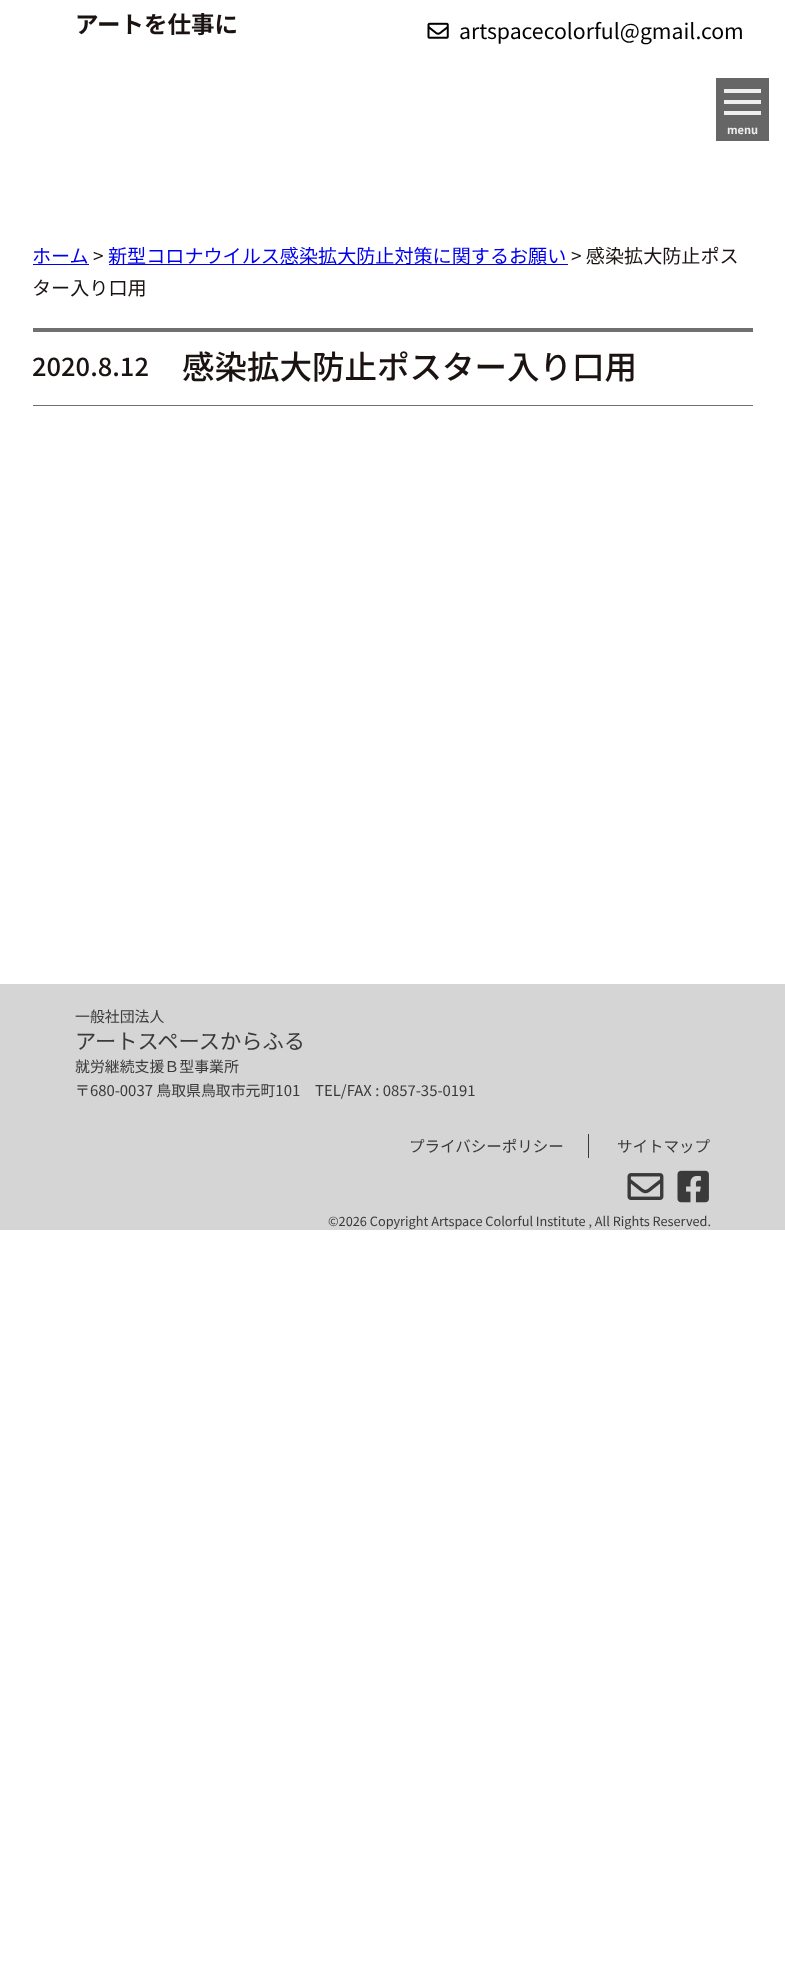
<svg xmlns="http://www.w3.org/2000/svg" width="785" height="1968">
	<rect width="100%" height="100%" fill="#FFFFFF" />
	<text x="75" y="33" font-family="Noto Sans JP" font-size="23.5" font-weight="700" fill="#1A1311">アートを仕事に</text>
	<image x="427" y="22" width="22" height="17" href="assets/img1.png" />
	<text x="459" y="39" font-family="Noto Sans JP" font-size="21.25" fill="#000000">artspacecolorful@gmail.com</text>
	<rect x="716" y="78" width="53" height="63" fill="#666666" />
	<rect x="724" y="89" width="37" height="4" fill="#EEEEEE" />
	<rect x="724" y="100" width="37" height="4" fill="#EEEEEE" />
	<rect x="724" y="111" width="37" height="4" fill="#EEEEEE" />
	<text x="727" y="134" font-family="Noto Sans JP" font-size="11" font-weight="700" fill="#EEEEEE">menu</text>
	<text x="32" y="263" font-family="Noto Sans JP" font-size="19.1" fill="#0000EE">ホーム</text>
	<rect x="33" y="264" width="56" height="1" fill="#0000EE" />
	<text x="93" y="263" font-family="Noto Sans JP" font-size="19.1" fill="#1A1311">&gt;</text>
	<rect x="109" y="264" width="459" height="1" fill="#0000EE" />
	<text x="108" y="263" font-family="Noto Sans JP" font-size="19.1" fill="#0000EE">新型コロナウイルス感染拡大防止対策に関するお願い</text>
	<g font-family="Noto Sans JP" font-size="19.1" fill="#1A1311">
		<text x="571" y="263">&gt; 感染拡大防止ポス</text>
		<text x="32" y="295">ター入り口用</text>
	</g>
	<rect x="33" y="328" width="720" height="4" fill="#707070" />
	<text x="32" y="376" font-family="Noto Sans JP" font-size="25.5" font-weight="500" fill="#1A1311">2020.8.12</text>
	<text x="182" y="379" font-family="Noto Sans JP" font-size="32.5" font-weight="500" fill="#1A1311">感染拡大防止ポスター入り口用</text>
	<rect x="33" y="405" width="720" height="1" fill="#707070" />
	<rect x="0" y="984" width="785" height="246" fill="#D5D5D6" />
	<text x="75" y="1022" font-family="Noto Sans JP" font-size="14.9" fill="#3A3A3A">一般社団法人</text>
	<text x="75" y="1049" font-family="Noto Sans JP" font-size="21.25" fill="#3A3A3A">アートスペースからふる</text>
	<g font-family="Noto Sans JP" font-size="14.9" fill="#3A3A3A">
		<text x="75" y="1072">就労継続支援Ｂ型事業所</text>
		<text x="75" y="1096">〒680-0037 鳥取県鳥取市元町101　TEL/FAX : 0857-35-0191</text>
	</g>
	<rect x="588" y="1134" width="1" height="24" fill="#3A3A3A" />
	<g font-family="Noto Sans JP" font-size="15.5" fill="#3A3A3A">
		<text x="409" y="1152">プライバシーポリシー</text>
		<text x="617" y="1152">サイトマップ</text>
	</g>
	<image x="627" y="1173" width="37" height="27" href="assets/img2.png" />
	<image x="677" y="1170" width="32" height="33" href="assets/img3.png" />
	<text x="328" y="1226" font-family="Noto Sans JP" font-size="12.75" fill="#3A3A3A">©2026 Copyright Artspace Colorful Institute , All Rights Reserved.</text>
</svg>
